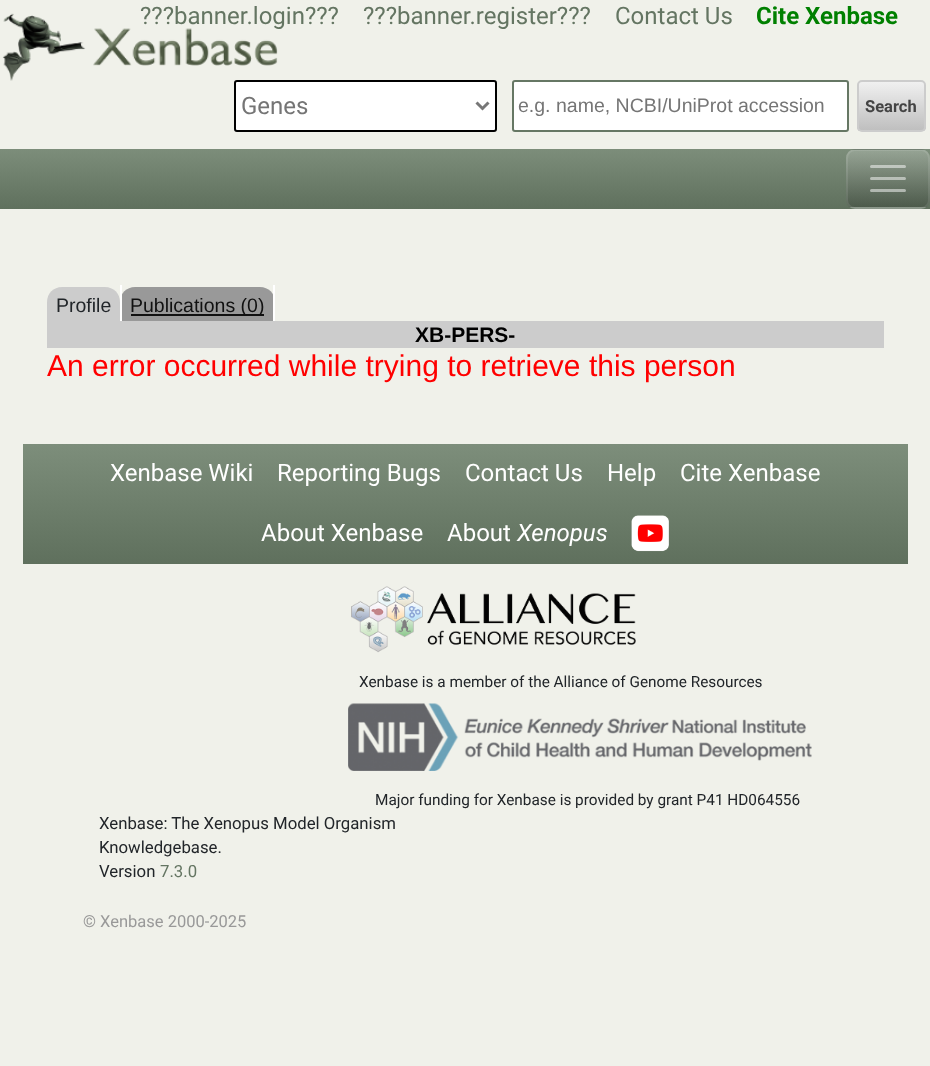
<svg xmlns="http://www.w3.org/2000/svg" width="930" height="1066">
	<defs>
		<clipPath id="clip1"><rect x="857" y="80" width="69" height="52" rx="5" /></clipPath>
		<linearGradient id="g1" gradientUnits="userSpaceOnUse" x1="891" y1="81" x2="891" y2="131"><stop offset="0" stop-color="#F1F1F1" /><stop offset="1" stop-color="#BEBEBE" /></linearGradient>
		<linearGradient id="g2" gradientUnits="userSpaceOnUse" x1="465" y1="148" x2="465" y2="209"><stop offset="0" stop-color="#7D8E7B" /><stop offset="1" stop-color="#5F705D" /></linearGradient>
		<clipPath id="clip2"><rect x="846" y="149" width="84" height="60" rx="9" /></clipPath>
		<linearGradient id="g3" gradientUnits="userSpaceOnUse" x1="888" y1="93" x2="888" y2="150"><stop offset="0" stop-color="#96A495" /><stop offset="1" stop-color="#637162" /></linearGradient>
		<linearGradient id="g4" gradientUnits="userSpaceOnUse" x1="888" y1="150" x2="888" y2="207"><stop offset="0" stop-color="#FFFFFF" stop-opacity="0.2" /><stop offset="1" stop-color="#000000" stop-opacity="0.2" /></linearGradient>
		<linearGradient id="g5" gradientUnits="userSpaceOnUse" x1="888" y1="207" x2="888" y2="264"><stop offset="0" stop-color="#7F8D7E" /><stop offset="1" stop-color="#4C5A4B" /></linearGradient>
		<linearGradient id="g6" gradientUnits="userSpaceOnUse" x1="465" y1="444" x2="465" y2="564"><stop offset="0" stop-color="#7D8E7B" /><stop offset="1" stop-color="#5F705D" /></linearGradient>
	</defs>
	<rect width="100%" height="100%" fill="#F0F1EA" />
	<text x="140" y="24" font-family="Roboto" font-size="24" fill="#647562">???banner.login???</text>
	<rect x="235" y="81" width="261" height="50" rx="2" fill="#FFFFFF" stroke="#000000" stroke-width="2" />
	<image x="2" y="13" width="276" height="68" href="assets/img1.png" />
	<g font-family="Roboto" font-size="24" fill="#647562">
		<text x="363" y="24">???banner.register???</text>
		<text x="615" y="24">Contact Us</text>
	</g>
	<text x="756" y="24" font-family="Roboto" font-size="24" font-weight="700" fill="#008000">Cite Xenbase</text>
	<path d="M476.5 102.5L482.5 108.5L488.5 102.5" fill="none" stroke="#777777" stroke-width="3" />
	<text x="241" y="114" font-family="Roboto" font-size="24" fill="#757575">Genes</text>
	<rect x="513" y="81" width="335" height="50" rx="2" fill="#FFFFFF" stroke="#667764" stroke-width="2" />
	<text x="518" y="112" font-family="Liberation Sans" font-size="19.5" fill="#757575">e.g. name, NCBI/UniProt accession</text>
	<g clip-path="url(#clip1)">
		<rect x="857" y="81" width="69" height="50" fill="url(#g1)" />
	</g>
	<rect x="858" y="81" width="67" height="50" rx="4" fill="none" stroke="#CCCCCC" stroke-width="2" />
	<text x="865" y="112" font-family="Roboto" font-size="16.5" font-weight="700" fill="#444444">Search</text>
	<rect x="0" y="149" width="930" height="60" fill="url(#g2)" />
	<g clip-path="url(#clip2)">
		<rect x="846" y="149" width="84" height="1" fill="url(#g3)" />
		<rect x="846" y="150" width="84" height="57" fill="url(#g4)" />
		<rect x="846" y="207" width="84" height="2" fill="url(#g5)" />
	</g>
	<rect x="847" y="150" width="82" height="58" rx="8" fill="none" stroke="#FFFFFF" stroke-opacity="0.1" stroke-width="2" />
	<path d="M871.5 166.5H904.5M871.5 178.5H904.5M871.5 190.5H904.5" fill="none" stroke="#FFFFFF" stroke-opacity="0.5" stroke-width="3" stroke-linecap="round" />
	<path d="M62 287H105C113.5 287 120 293.5 120 302V324H47V302C47 293.5 53.5 287 62 287Z" fill="#CCCCCC" />
	<path d="M135 287H260C268.5 287 275 293.5 275 302V324H120V302C120 293.5 126.5 287 135 287Z" fill="#999999" />
	<rect x="120" y="285" width="2" height="39" fill="#FFFFFF" />
	<text x="56" y="312" font-family="Liberation Sans" font-size="19.5" fill="#212529">Profile</text>
	<rect x="273" y="285" width="2" height="39" fill="#FFFFFF" />
	<rect x="131" y="314" width="133" height="2" fill="#111111" />
	<text x="130" y="312" font-family="Liberation Sans" font-size="19.5" fill="#111111">Publications (0)</text>
	<rect x="47" y="321" width="837" height="27" fill="#CCCCCC" />
	<text x="415" y="342" font-family="Liberation Sans" font-size="21" font-weight="700" fill="#000000">XB-PERS-</text>
	<text x="47" y="376" font-family="Liberation Sans" font-size="30" fill="#FF0000">An error occurred while trying to retrieve this person</text>
	<rect x="23" y="444" width="885" height="120" fill="url(#g6)" />
	<g font-family="Roboto" font-size="24" fill="#FFFFFF">
		<text x="110" y="481">Xenbase Wiki</text>
		<text x="277" y="481">Reporting Bugs</text>
		<text x="465" y="481">Contact Us</text>
		<text x="607" y="481">Help</text>
		<text x="680" y="481">Cite Xenbase</text>
		<text x="261" y="541">About Xenbase</text>
		<text x="447" y="541">About</text>
	</g>
	<text x="517" y="541" font-family="Roboto" font-size="24" font-style="italic" fill="#FFFFFF">Xenopus</text>
	<image x="631" y="515" width="38" height="37" href="assets/img2.png" />
	<image x="351" y="586" width="285" height="67" href="assets/img3.png" />
	<text x="359" y="687" font-family="Roboto" font-size="15.35" fill="#212529">Xenbase is a member of the Alliance of Genome Resources</text>
	<image x="348" y="703" width="464" height="68" href="assets/img4.png" />
	<text x="375" y="805" font-family="Roboto" font-size="15.35" fill="#212529">Major funding for Xenbase is provided by grant P41 HD064556</text>
	<g font-family="Roboto" font-size="16.75" fill="#212529">
		<text x="99" y="829">Xenbase: The Xenopus Model Organism</text>
		<text x="99" y="853">Knowledgebase.</text>
		<text x="99" y="877">Version</text>
	</g>
	<text x="160" y="877" font-family="Roboto" font-size="16.75" fill="#647562">7.3.0</text>
	<text x="83" y="927" font-family="Roboto" font-size="16.5" fill="#999999">© Xenbase 2000-2025</text>
</svg>
